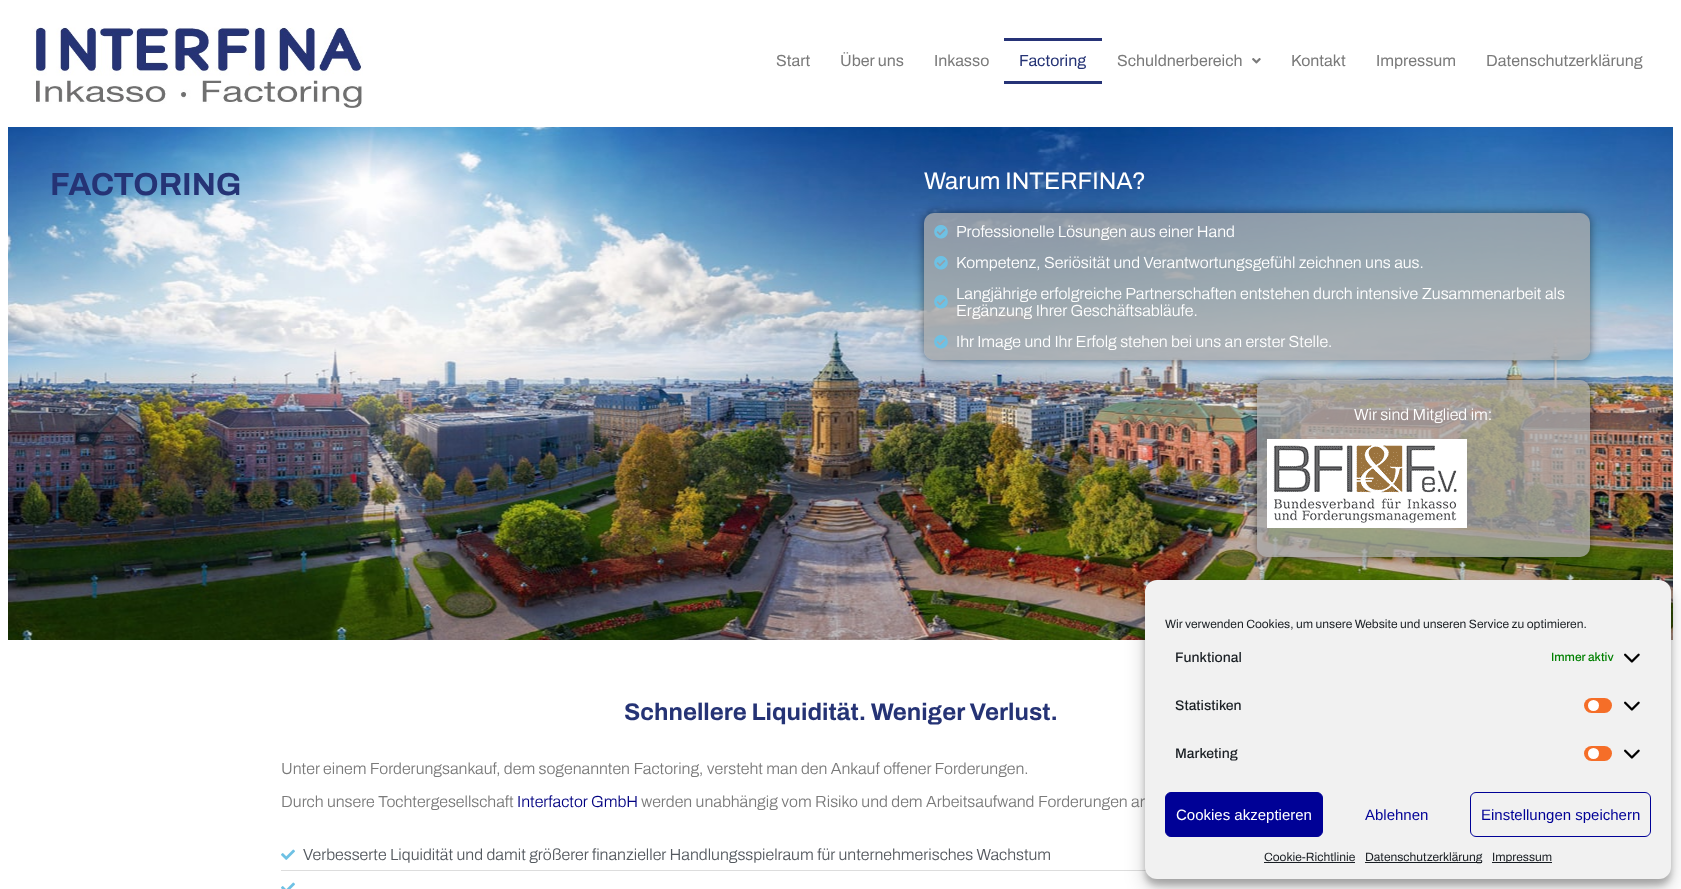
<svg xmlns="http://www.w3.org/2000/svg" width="1681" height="889">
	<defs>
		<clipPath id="clip1"><path d="M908 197H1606V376H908ZM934 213H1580C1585.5 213 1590 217.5 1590 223V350C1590 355.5 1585.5 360 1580 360H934C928.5 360 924 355.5 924 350V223C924 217.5 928.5 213 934 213Z" clip-rule="evenodd" /></clipPath>
		<clipPath id="clip2"><path d="M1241 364H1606V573H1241ZM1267 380H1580C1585.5 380 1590 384.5 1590 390V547C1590 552.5 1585.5 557 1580 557H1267C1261.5 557 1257 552.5 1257 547V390C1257 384.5 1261.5 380 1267 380Z" clip-rule="evenodd" /></clipPath>
	</defs>
	<rect width="100%" height="100%" fill="#FFFFFF" />
	<image x="31" y="27" width="332" height="81" href="assets/img1.png" />
	<g font-family="'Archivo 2'" font-size="16" font-weight="600" fill="#7A7A7A">
		<text x="776" y="66">Start</text>
		<text x="840" y="66">Über uns</text>
		<text x="934" y="66">Inkasso</text>
	</g>
	<rect x="1004" y="38" width="98" height="3" fill="#263377" />
	<text x="1019" y="66" font-family="'Archivo 2'" font-size="16" font-weight="600" fill="#253375">Factoring</text>
	<rect x="1004" y="81" width="98" height="3" fill="#263377" />
	<text x="1117" y="66" font-family="'Archivo 2'" font-size="16" font-weight="600" fill="#7A7A7A">Schuldnerbereich</text>
	<image x="1252" y="58" width="9" height="6" href="assets/img2.png" />
	<g font-family="'Archivo 2'" font-size="16" font-weight="600" fill="#7A7A7A">
		<text x="1291" y="66">Kontakt</text>
		<text x="1376" y="66">Impressum</text>
		<text x="1486" y="66">Datenschutzerklärung</text>
	</g>
	<image x="8" y="127" width="1665" height="513" href="assets/img3.png" />
	<text x="50" y="195" font-family="Archivo" font-size="32" font-weight="600" fill="#253375">FACTORING</text>
	<text x="924" y="189" font-family="'Archivo 2'" font-size="24" font-weight="600" fill="#FFFFFF">Warum INTERFINA?</text>
	<g clip-path="url(#clip1)">
		<rect x="924" y="213" width="666" height="147" rx="10" fill="#000000" fill-opacity="0.5" filter="blur(5px)" />
	</g>
	<rect x="924" y="213" width="666" height="147" rx="10" fill="#A8A8A8" fill-opacity="0.77" />
	<image x="934" y="225" width="14" height="14" href="assets/img4.png" />
	<text x="956" y="237" font-family="'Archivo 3'" font-size="16" font-weight="600" fill="#FFFFFF">Professionelle Lösungen aus einer Hand</text>
	<image x="934" y="256" width="14" height="14" href="assets/img5.png" />
	<text x="956" y="268" font-family="'Archivo 3'" font-size="16" font-weight="600" fill="#FFFFFF">Kompetenz, Seriösität und Verantwortungsgefühl zeichnen uns aus.</text>
	<image x="934" y="295" width="14" height="14" href="assets/img6.png" />
	<g font-family="'Archivo 3'" font-size="16" font-weight="600" fill="#FFFFFF">
		<text x="956" y="299">Langjährige erfolgreiche Partnerschaften entstehen durch intensive Zusammenarbeit als</text>
		<text x="956" y="316">Ergänzung Ihrer Geschäftsabläufe.</text>
	</g>
	<image x="934" y="335" width="14" height="14" href="assets/img7.png" />
	<text x="956" y="347" font-family="'Archivo 3'" font-size="16" font-weight="600" fill="#FFFFFF">Ihr Image und Ihr Erfolg stehen bei uns an erster Stelle.</text>
	<g clip-path="url(#clip2)">
		<rect x="1257" y="380" width="333" height="177" rx="10" fill="#000000" fill-opacity="0.5" filter="blur(5px)" />
	</g>
	<rect x="1257" y="380" width="333" height="177" rx="10" fill="#A8A8A8" fill-opacity="0.77" />
	<text x="1354" y="420" font-family="'Archivo 3'" font-size="16" font-weight="600" fill="#FFFFFF">Wir sind Mitglied im:</text>
	<image x="1267" y="439" width="200" height="89" href="assets/img8.png" />
	<text x="624" y="720" font-family="Archivo" font-size="24" font-weight="600" fill="#253375">Schnellere Liquidität. Weniger Verlust.</text>
	<g font-family="'Archivo 3'" font-size="16" font-weight="600" fill="#7A7A7A">
		<text x="281" y="774">Unter einem Forderungsankauf, dem sogenannten Factoring, versteht man den Ankauf offener Forderungen.</text>
		<text x="281" y="807">Durch unsere Tochtergesellschaft</text>
	</g>
	<text x="517" y="807" font-family="'Archivo 3'" font-size="16" font-weight="600" fill="#000080">Interfactor GmbH</text>
	<text x="641" y="807" font-family="'Archivo 3'" font-size="16" font-weight="600" fill="#7A7A7A">werden unabhängig vom Risiko und dem Arbeitsaufwand Forderungen an</text>
	<image x="281" y="849" width="14" height="11" href="assets/img9.png" />
	<text x="303" y="860" font-family="'Archivo 3'" font-size="16" font-weight="600" fill="#54595F">Verbesserte Liquidität und damit größerer finanzieller Handlungsspielraum für unternehmerisches Wachstum</text>
	<rect x="281" y="870" width="865" height="1" fill="#DDDDDD" />
	<image x="281" y="882" width="14" height="7" href="assets/img10.png" />
	<rect x="1145" y="586" width="526" height="299" rx="12" fill="#000000" fill-opacity="0.23" filter="blur(3px)" />
	<rect x="1145" y="590" width="526" height="299" rx="12" fill="#000000" fill-opacity="0.19" filter="blur(10px)" />
	<rect x="1145" y="580" width="526" height="299" rx="12" fill="#F1F1F1" />
	<text x="1165" y="628" font-family="'Archivo 2'" font-size="12" font-weight="600" fill="#191E23">Wir verwenden Cookies, um unsere Website und unseren Service zu optimieren.</text>
	<text x="1175" y="662" font-family="'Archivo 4'" font-size="14" font-weight="600" fill="#191E23">Funktional</text>
	<text x="1551" y="661" font-family="'Archivo 4'" font-size="12" font-weight="600" fill="#008000">Immer aktiv</text>
	<image x="1624" y="653" width="16" height="10" href="assets/img11.png" />
	<text x="1175" y="710" font-family="'Archivo 4'" font-size="14" font-weight="600" fill="#191E23">Statistiken</text>
	<rect x="1584" y="698" width="28" height="15" rx="7.5" fill="#F56E28" />
	<circle cx="1593.5" cy="705.5" r="5.5" fill="#FFFFFF" />
	<image x="1624" y="701" width="16" height="10" href="assets/img11.png" />
	<text x="1175" y="758" font-family="'Archivo 4'" font-size="14" font-weight="600" fill="#191E23">Marketing</text>
	<rect x="1584" y="746" width="28" height="15" rx="7.5" fill="#F56E28" />
	<circle cx="1593.5" cy="753.5" r="5.5" fill="#FFFFFF" />
	<image x="1624" y="749" width="16" height="10" href="assets/img11.png" />
	<rect x="1165.5" y="792.5" width="157" height="44" rx="5.5" fill="#000196" stroke="#000196" />
	<text x="1176" y="820" font-family="Liberation Sans" font-size="15" fill="#FFFFFF">Cookies akzeptieren</text>
	<text x="1365" y="820" font-family="Liberation Sans" font-size="15" fill="#000196">Ablehnen</text>
	<rect x="1470.5" y="792.5" width="180" height="44" rx="5.5" fill="none" stroke="#000196" />
	<text x="1481" y="820" font-family="Liberation Sans" font-size="15" fill="#000196">Einstellungen speichern</text>
	<text x="1264" y="861" font-family="'Archivo 2'" font-size="12" font-weight="600" fill="#191E23">Cookie-Richtlinie</text>
	<rect x="1264" y="862" width="91" height="1" fill="#191E23" />
	<rect x="1365" y="862" width="117" height="1" fill="#191E23" />
	<text x="1365" y="861" font-family="'Archivo 2'" font-size="12" font-weight="600" fill="#191E23">Datenschutzerklärung</text>
	<rect x="1492" y="862" width="60" height="1" fill="#191E23" />
	<text x="1492" y="861" font-family="'Archivo 2'" font-size="12" font-weight="600" fill="#191E23">Impressum</text>
</svg>
